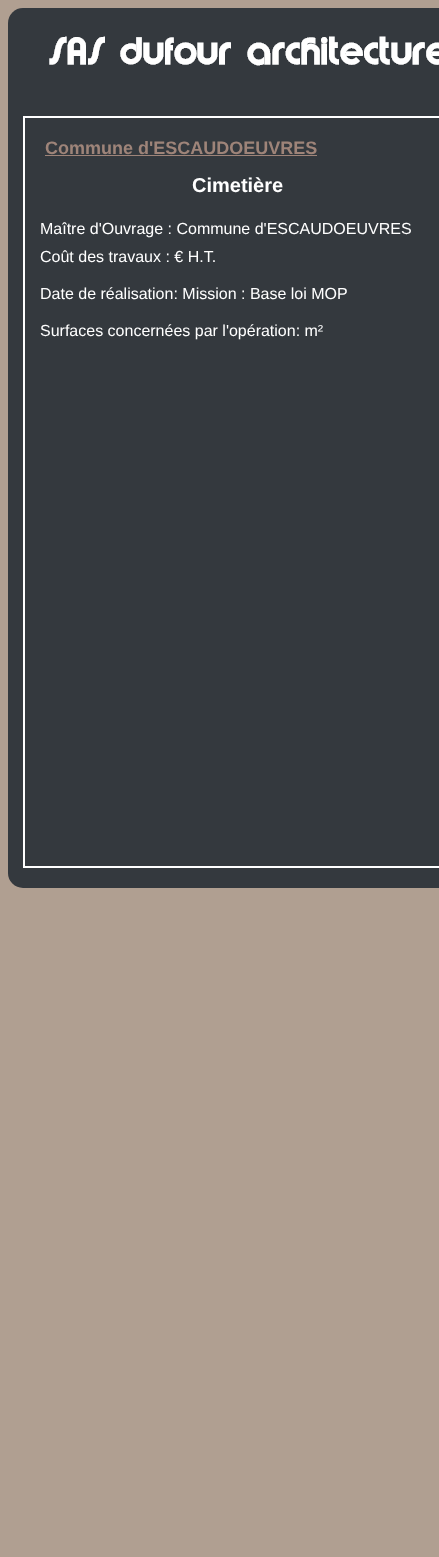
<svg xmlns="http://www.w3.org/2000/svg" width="439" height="1557">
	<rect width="100%" height="100%" fill="#B09F91" />
	<rect x="8" y="8" width="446" height="880" rx="15" fill="#34393E" />
	<image x="49" y="36" width="390" height="30" href="assets/img1.png" />
	<rect x="24" y="117" width="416" height="750" fill="none" stroke="#FFFFFF" stroke-width="2" />
	<text x="45" y="154" font-family="Liberation Sans" font-size="18" font-weight="700" fill="#9E8479">Commune d'ESCAUDOEUVRES</text>
	<rect x="45" y="155" width="272" height="1" fill="#9E8479" />
	<text x="192" y="192" font-family="Liberation Sans" font-size="20" font-weight="700" fill="#FFFFFF">Cimetière</text>
	<g font-family="Liberation Sans" font-size="16" fill="#FFFFFF">
		<text x="40" y="234">Maître d'Ouvrage : Commune d'ESCAUDOEUVRES</text>
		<text x="40" y="262">Coût des travaux : € H.T.</text>
		<text x="40" y="299">Date de réalisation: Mission : Base loi MOP</text>
		<text x="40" y="336">Surfaces concernées par l'opération: m²</text>
	</g>
</svg>
